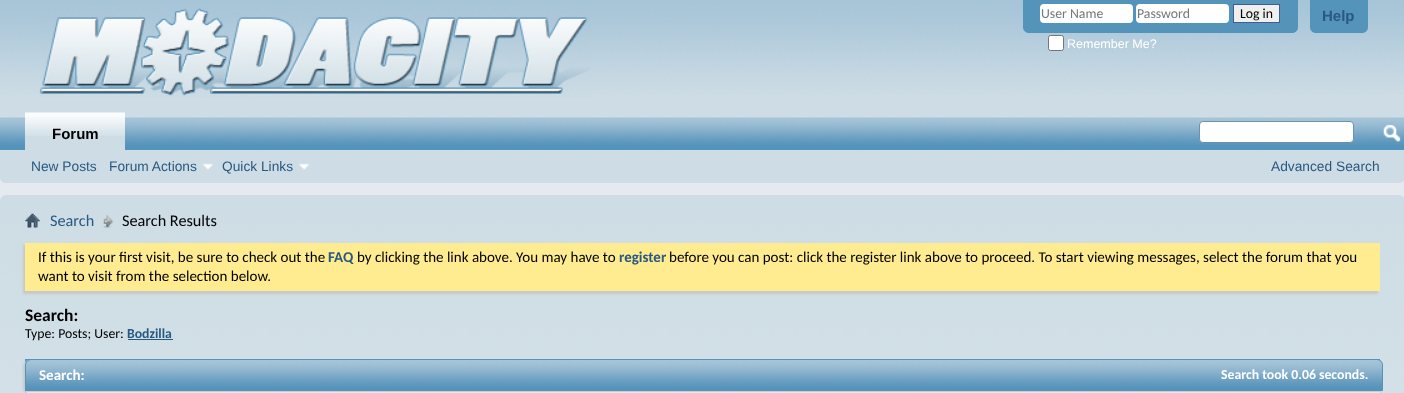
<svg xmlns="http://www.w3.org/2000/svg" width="1404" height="393">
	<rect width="100%" height="100%" fill="#E4EAEF" />
	<path d="M0 0H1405V177C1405 180.5 1402.5 183 1399 183H6C2.5 183 0 180.5 0 177Z" fill="#CEDDE5" />
	<image x="0" y="0" width="1404" height="95" href="assets/img1.png" />
	<image x="39" y="8" width="552" height="90" href="assets/img2.png" />
	<path d="M1023 0H1298V27C1298 30.5 1295.5 33 1292 33H1029C1025.5 33 1023 30.5 1023 27Z" fill="#5493BA" />
	<rect x="1040" y="4" width="93" height="19" rx="4" fill="#FFFFFF" />
	<text x="1041" y="18" font-family="Carlito" font-size="13.75" fill="#777777">User Name</text>
	<rect x="1136" y="4" width="93" height="19" rx="4" fill="#FFFFFF" />
	<text x="1137" y="18" font-family="Carlito" font-size="13.75" fill="#777777">Password</text>
	<rect x="1233.5" y="4.5" width="46" height="18" fill="#EFEFEF" stroke="#415D8D" />
	<text x="1240" y="18" font-family="Carlito" font-size="13.75" fill="#000000">Log in</text>
	<rect x="1048.5" y="35.5" width="15" height="15" rx="2" fill="#FFFFFF" stroke="#767676" />
	<text x="1067" y="48" font-family="Liberation Sans" font-size="12.5" fill="#FFFFFF">Remember Me?</text>
	<path d="M1310 0H1368V27C1368 30.5 1365.5 33 1362 33H1316C1312.5 33 1310 30.5 1310 27Z" fill="#5493BA" />
	<text x="1322" y="21" font-family="Liberation Sans" font-size="15" font-weight="700" fill="#295982">Help</text>
	<path d="M0 118H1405V177C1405 180.5 1402.5 183 1399 183H6C2.5 183 0 180.5 0 177Z" fill="#CEDDE5" />
	<rect x="0" y="145" width="1404" height="5" fill="#5493BA" />
	<image x="0" y="117" width="1404" height="28" href="assets/img3.png" />
	<rect x="25" y="136" width="100" height="14" fill="#CEDDE5" />
	<image x="25" y="112" width="100" height="24" href="assets/img4.png" />
	<text x="52" y="139" font-family="Liberation Sans" font-size="15" font-weight="700" fill="#000000">Forum</text>
	<g font-family="Liberation Sans" font-size="13.75" fill="#295982">
		<text x="31" y="171">New Posts</text>
		<text x="109" y="171">Forum Actions</text>
	</g>
	<image x="202" y="163" width="11" height="7" href="assets/img5.png" />
	<text x="222" y="171" font-family="Liberation Sans" font-size="13.75" fill="#295982">Quick Links</text>
	<image x="299" y="163" width="10" height="7" href="assets/img6.png" />
	<rect x="1199.5" y="121.5" width="154" height="21" rx="3.5" fill="#FFFFFF" stroke="#6B91AB" />
	<image x="1383" y="124" width="18" height="19" href="assets/img7.png" />
	<text x="1271" y="171" font-family="Liberation Sans" font-size="13.75" fill="#295982">Advanced Search</text>
	<image x="0" y="195" width="1404" height="198" href="assets/img8.png" />
	<image x="25" y="213" width="15" height="15" href="assets/img9.png" />
	<image x="103" y="215" width="10" height="13" href="assets/img10.png" />
	<text x="50" y="226" font-family="Carlito" font-size="16.25" fill="#295982">Search</text>
	<text x="122" y="226" font-family="Carlito" font-size="16.25" fill="#000000">Search Results</text>
	<rect x="23" y="245" width="1355" height="49" fill="#C8C8C8" filter="blur(1px)" />
	<rect x="25" y="243" width="1355" height="48" fill="#FFEB90" />
	<text x="38" y="262" font-family="Carlito" font-size="15" fill="#000000">If this is your first visit, be sure to check out the</text>
	<text x="328" y="262" font-family="Carlito" font-size="15" font-weight="700" fill="#295982">FAQ</text>
	<text x="357" y="262" font-family="Carlito" font-size="15" fill="#000000">by clicking the link above. You may have to</text>
	<text x="619" y="262" font-family="Carlito" font-size="15" font-weight="700" fill="#295982">register</text>
	<g font-family="Carlito" font-size="15" fill="#000000">
		<text x="669" y="262">before you can post: click the register link above to proceed. To start viewing messages, select the forum that you</text>
		<text x="38" y="281">want to visit from the selection below.</text>
	</g>
	<text x="25" y="321" font-family="Carlito" font-size="17.5" font-weight="700" fill="#000000">Search:</text>
	<text x="25" y="338" font-family="Carlito" font-size="13.75" fill="#000000">Type: Posts; User:</text>
	<text x="127" y="338" font-family="Carlito" font-size="13.75" font-weight="700" fill="#295982">Bodzilla</text>
	<rect x="128" y="339" width="45" height="1" fill="#295982" />
	<rect x="25" y="359" width="1355" height="3" fill="#5493BA" />
	<rect x="23" y="361" width="1357" height="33" rx="6" fill="#C8C8C8" filter="blur(1px)" />
	<image x="25" y="360" width="1358" height="32" href="assets/img11.png" />
	<rect x="26.5" y="391.5" width="1354" height="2" fill="#E9E9E9" stroke="#CECECE" />
	<path d="M31 359.5H1377C1380 359.5 1382.5 362 1382.5 365V390.5H25.5V365C25.5 362 28 359.5 31 359.5Z" fill="none" stroke="#5493BA" />
	<text x="39" y="380" font-family="Carlito" font-size="15" font-weight="700" fill="#FFFFFF">Search:</text>
	<text x="1221" y="379" font-family="Carlito" font-size="13.75" font-weight="700" fill="#FFFFFF">Search took 0.06 seconds.</text>
</svg>
